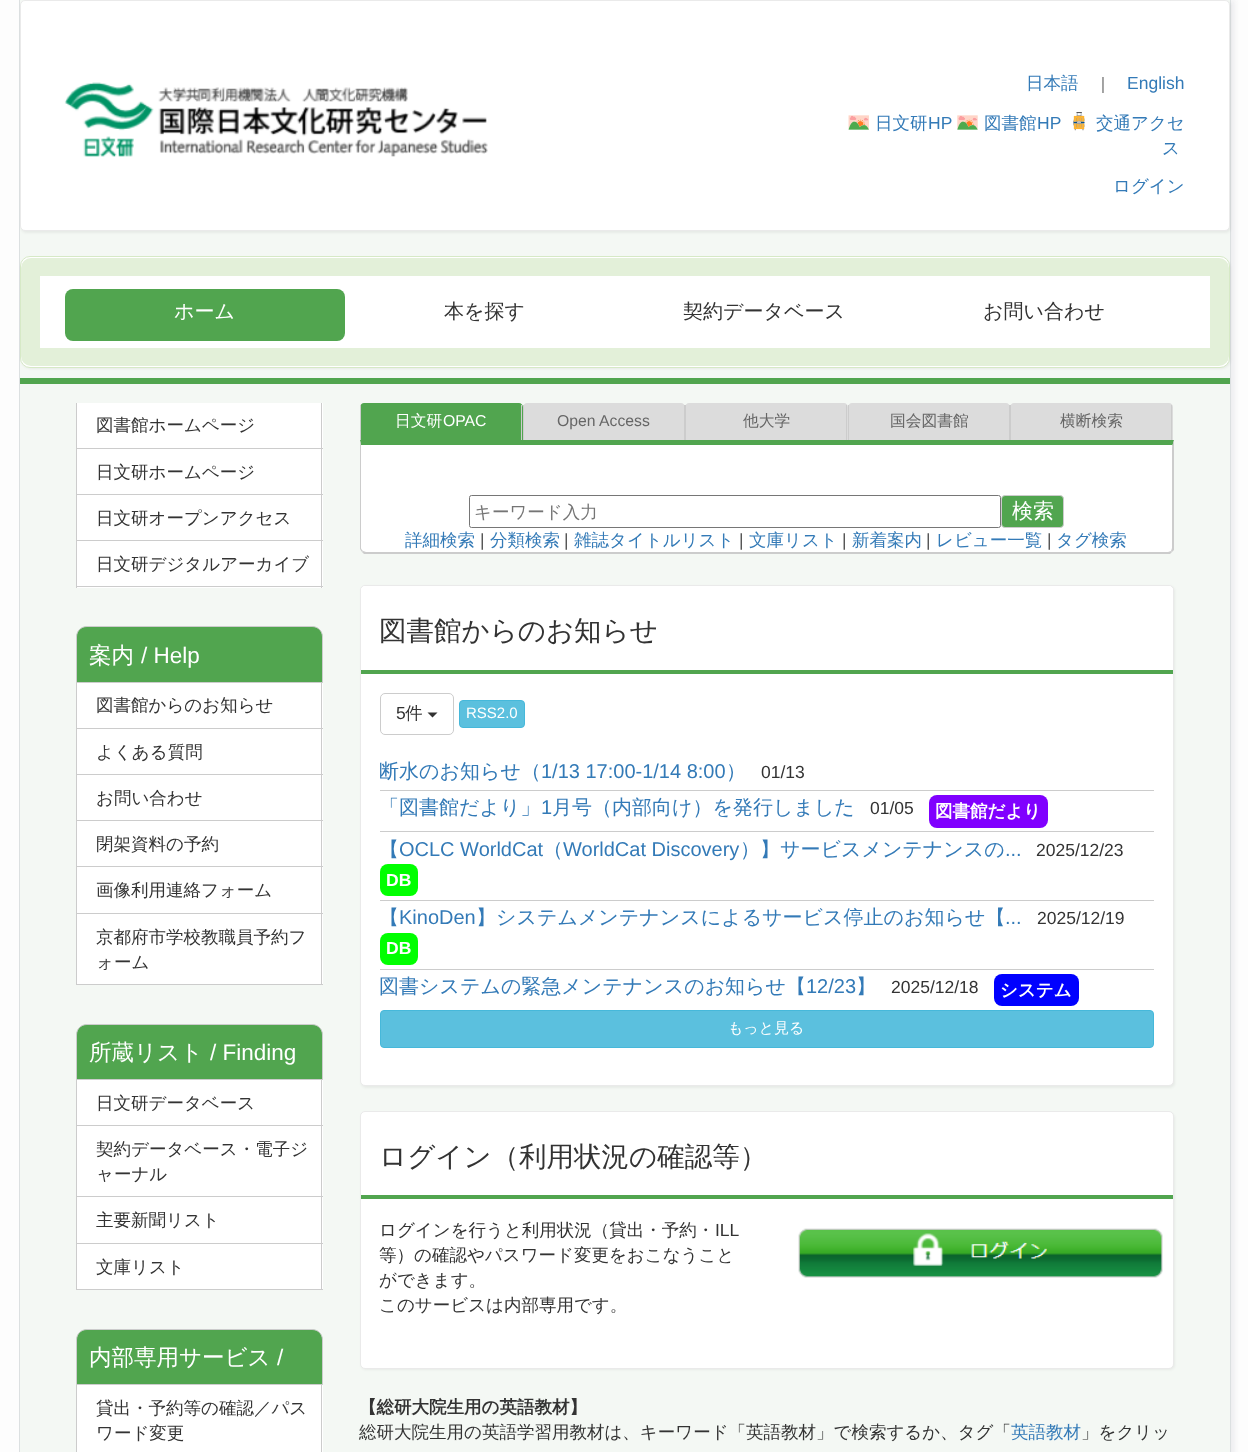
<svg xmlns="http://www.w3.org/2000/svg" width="1248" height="1452">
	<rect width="100%" height="100%" fill="#FDFDFD" />
	<rect x="23" y="0" width="1212" height="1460" fill="#EEEEF0" filter="blur(2.5px)" />
	<rect x="20" y="0" width="1210" height="1452" fill="#F4F8F4" />
	<rect x="1230" y="0" width="1" height="1452" fill="#DCE0E1" />
	<rect x="19" y="0" width="1" height="1452" fill="#DCE0E1" />
	<rect x="20" y="378" width="1210" height="6" fill="#51A54F" />
	<rect x="21" y="1" width="1210" height="232" rx="5" fill="#000000" fill-opacity="0.05" filter="blur(1px)" />
	<rect x="20.5" y="0.5" width="1209" height="230" rx="4.5" fill="#FFFFFF" stroke="#EAEAEA" />
	<image x="64" y="82" width="424" height="75" href="assets/img1.png" />
	<text x="1026" y="89" font-family="WenQuanYi Zen Hei" font-size="17.5" font-weight="500" fill="#337AB7">日本語</text>
	<text x="1095" y="89" font-family="WenQuanYi Zen Hei" font-size="16" font-weight="500" fill="#494949">｜</text>
	<text x="1127" y="89" font-family="Liberation Sans" font-size="17.5" fill="#337AB7">English</text>
	<image x="848" y="115" width="21" height="15" href="assets/img2.png" />
	<text x="875" y="129" font-family="WenQuanYi Zen Hei" font-size="17.5" font-weight="500" fill="#337AB7">日文研</text>
	<text x="928" y="129" font-family="Liberation Sans" font-size="17.5" fill="#337AB7">HP</text>
	<image x="957" y="115" width="21" height="15" href="assets/img3.png" />
	<text x="984" y="129" font-family="WenQuanYi Zen Hei" font-size="17.5" font-weight="500" fill="#337AB7">図書館</text>
	<text x="1037" y="129" font-family="Liberation Sans" font-size="17.5" fill="#337AB7">HP</text>
	<image x="1073" y="112" width="12" height="19" href="assets/img4.png" />
	<g font-family="WenQuanYi Zen Hei" font-size="17.5" font-weight="500" fill="#337AB7">
		<text x="1096" y="129">交通アクセ</text>
		<text x="1162" y="154">ス</text>
		<text x="1113" y="192">ログイン</text>
	</g>
	<rect x="21" y="258" width="1210" height="111" rx="10" fill="#000000" fill-opacity="0.05" filter="blur(1px)" />
	<rect x="20.5" y="256.5" width="1209" height="111" rx="9.5" fill="#FFFFFF" stroke="#D6E9C6" />
	<rect x="21" y="258" width="1208" height="108" rx="10" fill="#E3F0D9" />
	<rect x="40" y="276" width="1170" height="72" fill="#FFFFFF" />
	<rect x="65" y="289" width="280" height="52" rx="8" fill="#51A54F" />
	<text x="174" y="318" font-family="WenQuanYi Zen Hei" font-size="20" font-weight="500" fill="#FFFFFF">ホーム</text>
	<g font-family="WenQuanYi Zen Hei" font-size="20" font-weight="500" fill="#333333">
		<text x="444" y="318">本を探す</text>
		<text x="683" y="318">契約データベース</text>
		<text x="983" y="318">お問い合わせ</text>
	</g>
	<rect x="77" y="403" width="246" height="45" fill="#FFFFFF" />
	<rect x="321" y="403" width="1" height="46" fill="#CCCCCC" />
	<rect x="76" y="448" width="247" height="1" fill="#CCCCCC" />
	<rect x="76" y="403" width="1" height="46" fill="#CCCCCC" />
	<text x="96" y="431" font-family="WenQuanYi Zen Hei" font-size="17.5" font-weight="500" fill="#333333">図書館ホームページ</text>
	<rect x="77" y="449" width="246" height="45" fill="#FFFFFF" />
	<rect x="321" y="449" width="1" height="46" fill="#CCCCCC" />
	<rect x="76" y="494" width="247" height="1" fill="#CCCCCC" />
	<rect x="76" y="449" width="1" height="46" fill="#CCCCCC" />
	<text x="96" y="478" font-family="WenQuanYi Zen Hei" font-size="17.5" font-weight="500" fill="#333333">日文研ホームページ</text>
	<rect x="77" y="495" width="246" height="45" fill="#FFFFFF" />
	<rect x="321" y="495" width="1" height="46" fill="#CCCCCC" />
	<rect x="76" y="540" width="247" height="1" fill="#CCCCCC" />
	<rect x="76" y="495" width="1" height="46" fill="#CCCCCC" />
	<text x="96" y="524" font-family="WenQuanYi Zen Hei" font-size="17.5" font-weight="500" fill="#333333">日文研オープンアクセス</text>
	<rect x="77" y="541" width="246" height="47" fill="#FFFFFF" />
	<rect x="321" y="541" width="1" height="47" fill="#CCCCCC" />
	<rect x="76" y="586" width="247" height="1" fill="#CCCCCC" />
	<rect x="76" y="541" width="1" height="47" fill="#CCCCCC" />
	<text x="96" y="570" font-family="WenQuanYi Zen Hei" font-size="17.5" font-weight="500" fill="#333333">日文研デジタルアーカイブ</text>
	<path d="M87 626.5H312C318 626.5 322.5 631 322.5 637V682.5H76.5V637C76.5 631 81 626.5 87 626.5Z" fill="#51A54F" stroke="#CCCCCC" />
	<text x="89" y="663" font-family="WenQuanYi Zen Hei" font-size="22.5" font-weight="500" fill="#FFFFFF">案内</text>
	<text x="141" y="663" font-family="Liberation Sans" font-size="22.5" fill="#FFFFFF">/ Help</text>
	<rect x="77" y="683" width="246" height="45" fill="#FFFFFF" />
	<rect x="321" y="683" width="1" height="46" fill="#CCCCCC" />
	<rect x="76" y="728" width="247" height="1" fill="#CCCCCC" />
	<rect x="76" y="683" width="1" height="46" fill="#CCCCCC" />
	<text x="96" y="711" font-family="WenQuanYi Zen Hei" font-size="17.5" font-weight="500" fill="#333333">図書館からのお知らせ</text>
	<rect x="77" y="729" width="246" height="45" fill="#FFFFFF" />
	<rect x="321" y="729" width="1" height="46" fill="#CCCCCC" />
	<rect x="76" y="774" width="247" height="1" fill="#CCCCCC" />
	<rect x="76" y="729" width="1" height="46" fill="#CCCCCC" />
	<text x="96" y="758" font-family="WenQuanYi Zen Hei" font-size="17.5" font-weight="500" fill="#333333">よくある質問</text>
	<rect x="77" y="775" width="246" height="45" fill="#FFFFFF" />
	<rect x="321" y="775" width="1" height="46" fill="#CCCCCC" />
	<rect x="76" y="820" width="247" height="1" fill="#CCCCCC" />
	<rect x="76" y="775" width="1" height="46" fill="#CCCCCC" />
	<text x="96" y="804" font-family="WenQuanYi Zen Hei" font-size="17.5" font-weight="500" fill="#333333">お問い合わせ</text>
	<rect x="77" y="821" width="246" height="92" fill="#FFFFFF" />
	<rect x="321" y="821" width="1" height="93" fill="#CCCCCC" />
	<rect x="76" y="866" width="247" height="1" fill="#CCCCCC" />
	<rect x="76" y="821" width="1" height="47" fill="#CCCCCC" />
	<text x="96" y="850" font-family="WenQuanYi Zen Hei" font-size="17.5" font-weight="500" fill="#333333">閉架資料の予約</text>
	<rect x="76" y="913" width="247" height="1" fill="#CCCCCC" />
	<rect x="76" y="868" width="1" height="46" fill="#CCCCCC" />
	<text x="96" y="896" font-family="WenQuanYi Zen Hei" font-size="17.5" font-weight="500" fill="#333333">画像利用連絡フォーム</text>
	<rect x="77" y="914" width="246" height="70" fill="#FFFFFF" />
	<rect x="321" y="914" width="1" height="71" fill="#CCCCCC" />
	<rect x="76" y="984" width="247" height="1" fill="#CCCCCC" />
	<rect x="76" y="914" width="1" height="71" fill="#CCCCCC" />
	<g font-family="WenQuanYi Zen Hei" font-size="17.5" font-weight="500" fill="#333333">
		<text x="96" y="943">京都府市学校教職員予約フ</text>
		<text x="96" y="968">ォーム</text>
	</g>
	<path d="M87 1024.5H312C318 1024.5 322.5 1029 322.5 1035V1079.5H76.5V1035C76.5 1029 81 1024.5 87 1024.5Z" fill="#51A54F" stroke="#CCCCCC" />
	<text x="89" y="1060" font-family="WenQuanYi Zen Hei" font-size="22.5" font-weight="500" fill="#FFFFFF">所蔵リスト</text>
	<text x="210" y="1060" font-family="Liberation Sans" font-size="22.5" fill="#FFFFFF">/ Finding</text>
	<rect x="77" y="1080" width="246" height="45" fill="#FFFFFF" />
	<rect x="321" y="1080" width="1" height="46" fill="#CCCCCC" />
	<rect x="76" y="1125" width="247" height="1" fill="#CCCCCC" />
	<rect x="76" y="1080" width="1" height="46" fill="#CCCCCC" />
	<text x="96" y="1109" font-family="WenQuanYi Zen Hei" font-size="17.5" font-weight="500" fill="#333333">日文研データベース</text>
	<rect x="77" y="1126" width="246" height="117" fill="#FFFFFF" />
	<rect x="321" y="1126" width="1" height="118" fill="#CCCCCC" />
	<rect x="76" y="1196" width="247" height="1" fill="#CCCCCC" />
	<rect x="76" y="1126" width="1" height="72" fill="#CCCCCC" />
	<g font-family="WenQuanYi Zen Hei" font-size="17.5" font-weight="500" fill="#333333">
		<text x="96" y="1155">契約データベース・電子ジ</text>
		<text x="96" y="1180">ャーナル</text>
	</g>
	<rect x="76" y="1243" width="247" height="1" fill="#CCCCCC" />
	<rect x="76" y="1198" width="1" height="46" fill="#CCCCCC" />
	<text x="96" y="1226" font-family="WenQuanYi Zen Hei" font-size="17.5" font-weight="500" fill="#333333">主要新聞リスト</text>
	<rect x="77" y="1244" width="246" height="45" fill="#FFFFFF" />
	<rect x="321" y="1244" width="1" height="46" fill="#CCCCCC" />
	<rect x="76" y="1289" width="247" height="1" fill="#CCCCCC" />
	<rect x="76" y="1244" width="1" height="46" fill="#CCCCCC" />
	<text x="96" y="1273" font-family="WenQuanYi Zen Hei" font-size="17.5" font-weight="500" fill="#333333">文庫リスト</text>
	<path d="M87 1329.5H312C318 1329.5 322.5 1334 322.5 1340V1384.5H76.5V1340C76.5 1334 81 1329.5 87 1329.5Z" fill="#51A54F" stroke="#CCCCCC" />
	<text x="89" y="1365" font-family="WenQuanYi Zen Hei" font-size="22.5" font-weight="500" fill="#FFFFFF">内部専用サービス</text>
	<text x="277" y="1365" font-family="Liberation Sans" font-size="22.5" fill="#FFFFFF">/</text>
	<rect x="77" y="1385" width="246" height="67" fill="#FFFFFF" />
	<rect x="321" y="1385" width="1" height="67" fill="#CCCCCC" />
	<rect x="76" y="1385" width="1" height="67" fill="#CCCCCC" />
	<g font-family="WenQuanYi Zen Hei" font-size="17.5" font-weight="500" fill="#333333">
		<text x="96" y="1414">貸出・予約等の確認／パス</text>
		<text x="96" y="1439">ワード変更</text>
	</g>
	<path d="M364 403H519C521 403 523 405 523 407V440H360V407C360 405 362 403 364 403Z" fill="#51A54F" />
	<rect x="521" y="405" width="1" height="35" fill="#CCCCCC" />
	<rect x="360" y="405" width="1" height="35" fill="#CCCCCC" />
	<text x="395" y="426" font-family="WenQuanYi Zen Hei" font-size="15.75" font-weight="500" fill="#FFFFFF">日文研</text>
	<text x="443" y="426" font-family="Liberation Sans" font-size="15.75" fill="#FFFFFF">OPAC</text>
	<path d="M527 403H681C683 403 685 405 685 407V440H523V407C523 405 525 403 527 403Z" fill="#DCDCDC" />
	<rect x="684" y="405" width="1" height="35" fill="#CCCCCC" />
	<rect x="523" y="405" width="1" height="35" fill="#CCCCCC" />
	<text x="557" y="426" font-family="Liberation Sans" font-size="15.75" fill="#666666">Open Access</text>
	<path d="M689 403H844C846 403 848 405 848 407V440H685V407C685 405 687 403 689 403Z" fill="#DCDCDC" />
	<rect x="846" y="405" width="1" height="35" fill="#CCCCCC" />
	<rect x="685" y="405" width="1" height="35" fill="#CCCCCC" />
	<text x="743" y="426" font-family="WenQuanYi Zen Hei" font-size="15.75" font-weight="500" fill="#666666">他大学</text>
	<path d="M852 403H1006C1008 403 1010 405 1010 407V440H848V407C848 405 850 403 852 403Z" fill="#DCDCDC" />
	<rect x="1009" y="405" width="1" height="35" fill="#CCCCCC" />
	<rect x="848" y="405" width="1" height="35" fill="#CCCCCC" />
	<text x="890" y="426" font-family="WenQuanYi Zen Hei" font-size="15.75" font-weight="500" fill="#666666">国会図書館</text>
	<path d="M1014 403H1169C1171 403 1173 405 1173 407V440H1010V407C1010 405 1012 403 1014 403Z" fill="#DCDCDC" />
	<rect x="1171" y="405" width="1" height="35" fill="#CCCCCC" />
	<rect x="1010" y="405" width="1" height="35" fill="#CCCCCC" />
	<text x="1060" y="426" font-family="WenQuanYi Zen Hei" font-size="15.75" font-weight="500" fill="#666666">横断検索</text>
	<path d="M361 445H1173V548C1173 551 1171 553 1168 553H366C363 553 361 551 361 548Z" fill="#FFFFFF" />
	<path d="M360 440L361 445H1172V447L1174 440Z" fill="#51A54F" />
	<path d="M1174 440V550L1172 552L1171 551L1172 548V447Z" fill="#CCCCCC" />
	<path d="M364 554L362 552L363 551L366 552H1168L1171 551L1172 552L1170 554Z" fill="#CCCCCC" />
	<path d="M361 445L360 440V549L362 552L363 551C362 550 361 549 361 548Z" fill="#CCCCCC" />
	<rect x="469.5" y="495.5" width="531" height="32" rx="2" fill="none" stroke="#767676" />
	<text x="474" y="518" font-family="WenQuanYi Zen Hei" font-size="17.5" font-weight="500" fill="#757575">キーワード入力</text>
	<rect x="1001.5" y="495.5" width="62" height="32" rx="3.5" fill="#51A54F" stroke="#CCCCCC" />
	<text x="1012" y="518" font-family="WenQuanYi Zen Hei" font-size="21" font-weight="500" fill="#FFFFFF">検索</text>
	<text x="405" y="546" font-family="WenQuanYi Zen Hei" font-size="17.5" font-weight="500" fill="#337AB7">詳細検索</text>
	<text x="480" y="546" font-family="Liberation Sans" font-size="17.5" fill="#555555">|</text>
	<text x="490" y="546" font-family="WenQuanYi Zen Hei" font-size="17.5" font-weight="500" fill="#337AB7">分類検索</text>
	<text x="564" y="546" font-family="Liberation Sans" font-size="17.5" fill="#555555">|</text>
	<text x="574" y="546" font-family="WenQuanYi Zen Hei" font-size="17.5" font-weight="500" fill="#337AB7">雑誌タイトルリスト</text>
	<text x="739" y="546" font-family="Liberation Sans" font-size="17.5" fill="#555555">|</text>
	<text x="749" y="546" font-family="WenQuanYi Zen Hei" font-size="17.5" font-weight="500" fill="#337AB7">文庫リスト</text>
	<text x="842" y="546" font-family="Liberation Sans" font-size="17.5" fill="#555555">|</text>
	<text x="852" y="546" font-family="WenQuanYi Zen Hei" font-size="17.5" font-weight="500" fill="#337AB7">新着案内</text>
	<text x="926" y="546" font-family="Liberation Sans" font-size="17.5" fill="#555555">|</text>
	<text x="936" y="546" font-family="WenQuanYi Zen Hei" font-size="17.5" font-weight="500" fill="#337AB7">レビュー一覧</text>
	<text x="1047" y="546" font-family="Liberation Sans" font-size="17.5" fill="#555555">|</text>
	<text x="1056" y="546" font-family="WenQuanYi Zen Hei" font-size="17.5" font-weight="500" fill="#337AB7">タグ検索</text>
	<rect x="361" y="586" width="814" height="502" rx="5" fill="#000000" fill-opacity="0.05" filter="blur(1px)" />
	<rect x="360.5" y="585.5" width="813" height="500" rx="4.5" fill="#FFFFFF" stroke="#EAEAEA" />
	<path d="M365 586H1169C1171 586 1173 588 1173 590V674H361V590C361 588 363 586 365 586Z" fill="#FFFFFF" />
	<rect x="361" y="670" width="812" height="4" fill="#51A54F" />
	<text x="379" y="640" font-family="WenQuanYi Zen Hei" font-size="27.5" font-weight="500" fill="#333333">図書館からのお知らせ</text>
	<rect x="380.5" y="693.5" width="73" height="41" rx="4.5" fill="none" stroke="#CCCCCC" />
	<text x="396" y="719" font-family="Liberation Sans" font-size="17.5" fill="#333333">5</text>
	<text x="405" y="719" font-family="WenQuanYi Zen Hei" font-size="17.5" font-weight="500" fill="#333333">件</text>
	<path d="M427.5 712.5H437.5L432.5 717.5Z" fill="#333333" />
	<rect x="459.5" y="700.5" width="65" height="27" rx="3.5" fill="#5BC0DE" stroke="#46B8DA" />
	<text x="466" y="718" font-family="Liberation Sans" font-size="15" fill="#FFFFFF">RSS2.0</text>
	<text x="379" y="778" font-family="WenQuanYi Zen Hei" font-size="20" font-weight="500" fill="#337AB7">断水のお知らせ（</text>
	<text x="541" y="778" font-family="Liberation Sans" font-size="20" fill="#337AB7">1/13 17:00-1/14 8:00</text>
	<text x="726" y="778" font-family="WenQuanYi Zen Hei" font-size="20" font-weight="500" fill="#337AB7">）</text>
	<text x="761" y="778" font-family="Liberation Sans" font-size="17.5" fill="#333333">01/13</text>
	<rect x="380" y="790" width="774" height="1" fill="#CCCCCC" />
	<text x="379" y="814" font-family="WenQuanYi Zen Hei" font-size="20" font-weight="500" fill="#337AB7">「図書館だより」</text>
	<text x="541" y="814" font-family="Liberation Sans" font-size="20" fill="#337AB7">1</text>
	<text x="552" y="814" font-family="WenQuanYi Zen Hei" font-size="20" font-weight="500" fill="#337AB7">月号（内部向け）を発行しました</text>
	<text x="870" y="814" font-family="Liberation Sans" font-size="17.5" fill="#333333">01/05</text>
	<rect x="929" y="795" width="119" height="33" rx="8" fill="#8000FF" />
	<text x="935" y="817" font-family="WenQuanYi Zen Hei" font-size="17.5" font-weight="700" fill="#FFFFFF">図書館だより</text>
	<rect x="380" y="831" width="774" height="1" fill="#CCCCCC" />
	<text x="379" y="856" font-family="WenQuanYi Zen Hei" font-size="20" font-weight="500" fill="#337AB7">【</text>
	<text x="399" y="856" font-family="Liberation Sans" font-size="20" fill="#337AB7">OCLC WorldCat</text>
	<text x="543" y="856" font-family="WenQuanYi Zen Hei" font-size="20" font-weight="500" fill="#337AB7">（</text>
	<text x="563" y="856" font-family="Liberation Sans" font-size="20" fill="#337AB7">WorldCat Discovery</text>
	<text x="740" y="856" font-family="WenQuanYi Zen Hei" font-size="20" font-weight="500" fill="#337AB7">）】サービスメンテナンスの</text>
	<text x="1005" y="856" font-family="Liberation Sans" font-size="20" fill="#337AB7">...</text>
	<text x="1036" y="856" font-family="Liberation Sans" font-size="17.5" fill="#333333">2025/12/23</text>
	<rect x="380" y="864" width="38" height="32" rx="8" fill="#00FF00" />
	<text x="386" y="886" font-family="Liberation Sans" font-size="17.5" font-weight="700" fill="#FFFFFF">DB</text>
	<rect x="380" y="900" width="774" height="1" fill="#CCCCCC" />
	<text x="379" y="924" font-family="WenQuanYi Zen Hei" font-size="20" font-weight="500" fill="#337AB7">【</text>
	<text x="399" y="924" font-family="Liberation Sans" font-size="20" fill="#337AB7">KinoDen</text>
	<text x="476" y="924" font-family="WenQuanYi Zen Hei" font-size="20" font-weight="500" fill="#337AB7">】システムメンテナンスによるサービス停止のお知らせ【</text>
	<text x="1005" y="924" font-family="Liberation Sans" font-size="20" fill="#337AB7">...</text>
	<text x="1037" y="924" font-family="Liberation Sans" font-size="17.5" fill="#333333">2025/12/19</text>
	<rect x="380" y="933" width="38" height="32" rx="8" fill="#00FF00" />
	<text x="386" y="954" font-family="Liberation Sans" font-size="17.5" font-weight="700" fill="#FFFFFF">DB</text>
	<rect x="380" y="969" width="774" height="1" fill="#CCCCCC" />
	<text x="379" y="993" font-family="WenQuanYi Zen Hei" font-size="20" font-weight="500" fill="#337AB7">図書システムの緊急メンテナンスのお知らせ【</text>
	<text x="806" y="993" font-family="Liberation Sans" font-size="20" fill="#337AB7">12/23</text>
	<text x="856" y="993" font-family="WenQuanYi Zen Hei" font-size="20" font-weight="500" fill="#337AB7">】</text>
	<text x="891" y="993" font-family="Liberation Sans" font-size="17.5" fill="#333333">2025/12/18</text>
	<rect x="994" y="974" width="85" height="32" rx="8" fill="#0000FF" />
	<text x="1000" y="996" font-family="WenQuanYi Zen Hei" font-size="17.5" font-weight="700" fill="#FFFFFF">システム</text>
	<rect x="380.5" y="1010.5" width="773" height="37" rx="3.5" fill="#5BC0DE" stroke="#46B8DA" />
	<text x="728" y="1033" font-family="WenQuanYi Zen Hei" font-size="15" font-weight="500" fill="#FFFFFF">もっと見る</text>
	<rect x="361" y="1113" width="814" height="257" rx="5" fill="#000000" fill-opacity="0.05" filter="blur(1px)" />
	<rect x="360.5" y="1111.5" width="813" height="257" rx="4.5" fill="#FFFFFF" stroke="#EAEAEA" />
	<rect x="361" y="1195" width="812" height="4" fill="#51A54F" />
	<text x="379" y="1166" font-family="WenQuanYi Zen Hei" font-size="27.5" font-weight="500" fill="#333333">ログイン（利用状況の確認等）</text>
	<text x="379" y="1236" font-family="WenQuanYi Zen Hei" font-size="17.5" font-weight="500" fill="#333333">ログインを行うと利用状況（貸出・予約・</text>
	<text x="715" y="1236" font-family="Liberation Sans" font-size="17.5" fill="#333333">ILL</text>
	<g font-family="WenQuanYi Zen Hei" font-size="17.5" font-weight="500" fill="#333333">
		<text x="379" y="1261">等）の確認やパスワード変更をおこなうこと</text>
		<text x="379" y="1286">ができます。</text>
		<text x="379" y="1311">このサービスは内部専用です。</text>
	</g>
	<image x="798" y="1228" width="365" height="50" href="assets/img5.png" />
	<text x="359" y="1413" font-family="WenQuanYi Zen Hei" font-size="17.5" font-weight="700" fill="#333333">【総研大院生用の英語教材】</text>
	<text x="359" y="1438" font-family="WenQuanYi Zen Hei" font-size="17.5" font-weight="500" fill="#333333">総研大院生用の英語学習用教材は、キーワード「英語教材」で検索するか、タグ「</text>
	<text x="1011" y="1438" font-family="WenQuanYi Zen Hei" font-size="17.5" font-weight="500" fill="#337AB7">英語教材</text>
	<text x="1081" y="1438" font-family="WenQuanYi Zen Hei" font-size="17.5" font-weight="500" fill="#333333">」をクリッ</text>
</svg>
